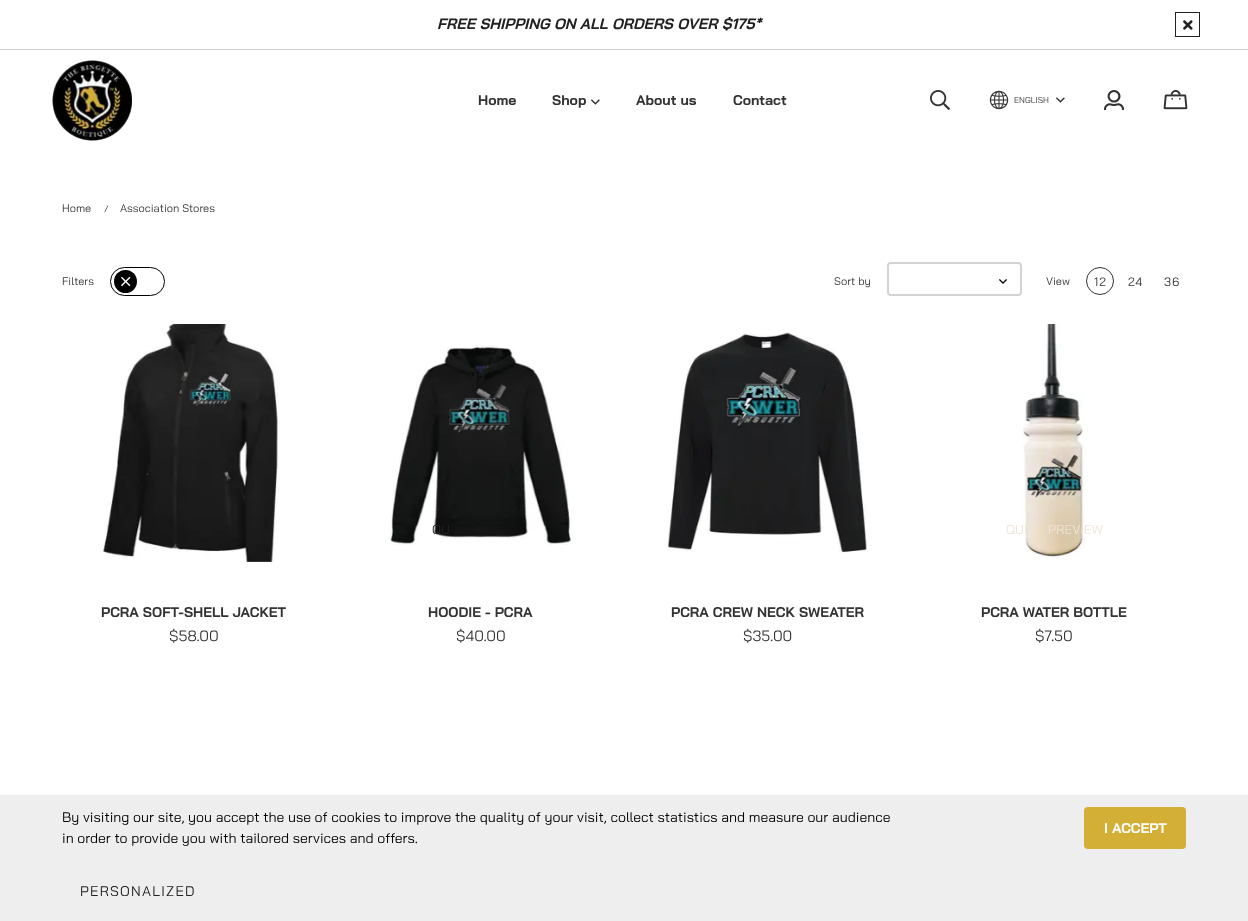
<svg xmlns="http://www.w3.org/2000/svg" width="1248" height="921">
	<rect width="100%" height="100%" fill="#FFFFFF" />
	<rect x="0" y="49" width="1248" height="1" fill="#CCCCCC" />
	<text x="437" y="29" font-family="Bai Jamjuree" font-size="15" font-weight="700" font-style="italic" fill="#212121">FREE SHIPPING ON ALL ORDERS OVER $175*</text>
	<rect x="1175.5" y="12.5" width="24" height="24" fill="none" stroke="#212121" />
	<image x="1183" y="20" width="10" height="10" href="assets/img1.png" />
	<image x="52" y="60" width="80" height="81" href="assets/img2.png" />
	<g font-family="Bai Jamjuree" font-size="14" font-weight="700" fill="#333333">
		<text x="478" y="105">Home</text>
		<text x="552" y="105">Shop</text>
	</g>
	<image x="591" y="99" width="9" height="6" href="assets/img3.png" />
	<g font-family="Bai Jamjuree" font-size="14" font-weight="700" fill="#333333">
		<text x="636" y="105">About us</text>
		<text x="733" y="105">Contact</text>
	</g>
	<image x="930" y="90" width="20" height="20" href="assets/img4.png" />
	<image x="989" y="90" width="20" height="20" href="assets/img5.png" />
	<text x="1014" y="103" font-family="Bai Jamjuree" font-size="8.5" fill="#333333">ENGLISH</text>
	<image x="1056" y="97" width="9" height="6" href="assets/img3.png" />
	<image x="1104" y="90" width="20" height="20" href="assets/img6.png" />
	<image x="1163" y="90" width="25" height="20" href="assets/img7.png" />
	<text x="62" y="212" font-family="Bai Jamjuree" font-size="11" fill="#333333">Home</text>
	<text x="104" y="212" font-family="Bai Jamjuree" font-size="9" fill="#333333">/</text>
	<g font-family="Bai Jamjuree" font-size="11" fill="#333333">
		<text x="120" y="212">Association Stores</text>
		<text x="62" y="285">Filters</text>
	</g>
	<rect x="110.5" y="267.5" width="54" height="28" rx="14" fill="none" stroke="#000000" />
	<circle cx="125.5" cy="281.5" r="11.5" fill="#000000" />
	<image x="121" y="276" width="10" height="11" href="assets/img8.png" />
	<text x="834" y="285" font-family="Bai Jamjuree" font-size="11" fill="#333333">Sort by</text>
	<rect x="888" y="263" width="133" height="32" rx="3" fill="none" stroke="#D3D3D3" stroke-width="2" />
	<image x="999" y="279" width="8" height="5" href="assets/img9.png" />
	<text x="1046" y="285" font-family="Bai Jamjuree" font-size="11" fill="#333333">View</text>
	<circle cx="1100" cy="281" r="13.5" fill="none" stroke="#333333" />
	<g font-family="Bai Jamjuree" font-size="12" letter-spacing="1" fill="#333333">
		<text x="1094" y="286">12</text>
		<text x="1128" y="286">24</text>
		<text x="1164" y="286">36</text>
	</g>
	<image x="102" y="324" width="177" height="238" href="assets/img10.png" />
	<text x="101" y="617" font-family="Bai Jamjuree" font-size="14" font-weight="700" fill="#333333">PCRA SOFT-SHELL JACKET</text>
	<text x="169" y="641" font-family="Bai Jamjuree" font-size="15" fill="#333333">$58.00</text>
	<image x="389" y="345" width="184" height="200" href="assets/img11.png" />
	<text x="432" y="534" font-family="Bai Jamjuree" font-size="13" fill="#212121">QU</text>
	<text x="428" y="617" font-family="Bai Jamjuree" font-size="14" font-weight="700" fill="#333333">HOODIE - PCRA</text>
	<text x="456" y="641" font-family="Bai Jamjuree" font-size="15" fill="#333333">$40.00</text>
	<image x="665" y="331" width="203" height="222" href="assets/img12.png" />
	<text x="671" y="617" font-family="Bai Jamjuree" font-size="14" font-weight="700" fill="#333333">PCRA CREW NECK SWEATER</text>
	<text x="743" y="641" font-family="Bai Jamjuree" font-size="15" fill="#333333">$35.00</text>
	<image x="1022" y="324" width="63" height="235" href="assets/img13.png" />
	<g font-family="Bai Jamjuree" font-size="13" fill="#EEE5D7">
		<text x="1006" y="534">QUI</text>
		<text x="1048" y="534">PREVIEW</text>
	</g>
	<text x="981" y="617" font-family="Bai Jamjuree" font-size="14" font-weight="700" fill="#333333">PCRA WATER BOTTLE</text>
	<text x="1035" y="641" font-family="Bai Jamjuree" font-size="15" fill="#333333">$7.50</text>
	<rect x="0" y="795" width="1248" height="126" fill="#EEEEEE" />
	<g font-family="Bai Jamjuree" font-size="14" fill="#000000">
		<text x="62" y="822">By visiting our site, you accept the use of cookies to improve the quality of your visit, collect statistics and measure our audience</text>
		<text x="62" y="843">in order to provide you with tailored services and offers.</text>
	</g>
	<rect x="1084" y="807" width="102" height="42" rx="4" fill="#D4AF36" />
	<text x="1104" y="833" font-family="Bai Jamjuree" font-size="14" font-weight="700" fill="#FFFFFF">I ACCEPT</text>
	<text x="80" y="896" font-family="Bai Jamjuree" font-size="14" letter-spacing="1.25" fill="#212121">PERSONALIZED</text>
</svg>
